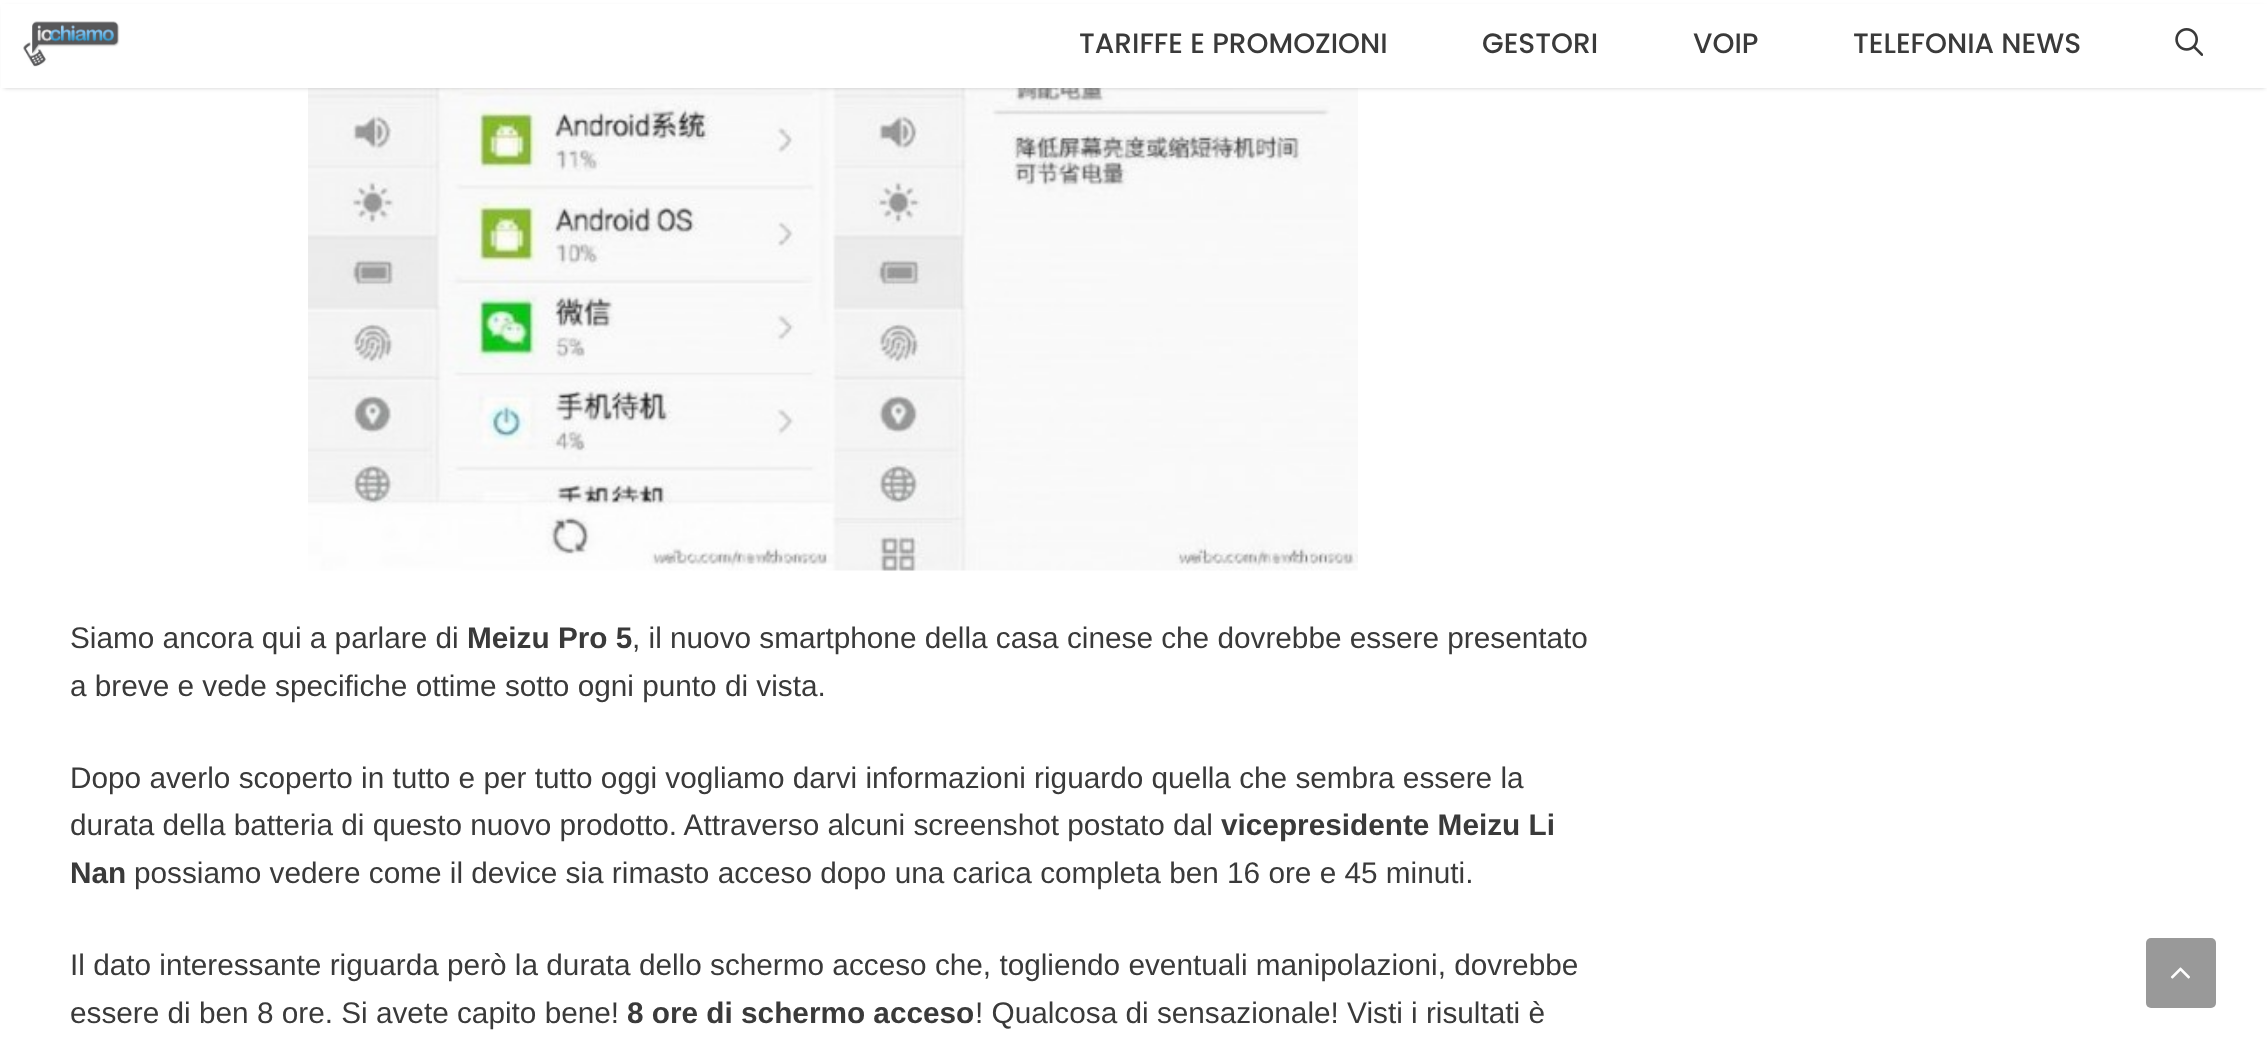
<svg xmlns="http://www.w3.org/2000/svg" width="2267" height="1060">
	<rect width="100%" height="100%" fill="#FFFFFF" />
	<image x="308" y="88" width="1050" height="483" href="assets/img3.png" />
	<rect x="4" y="7" width="2261" height="81" fill="#000000" fill-opacity="0.2" filter="blur(2px)" />
	<rect x="1" y="4" width="2266" height="84" fill="#FFFFFF" />
	<image x="23" y="21" width="97" height="46" href="assets/img1.png" />
	<g font-family="Poppins" font-size="28" font-weight="500" fill="#3A3A3A">
		<text x="1079" y="53">TARIFFE E PROMOZIONI</text>
		<text x="1482" y="53">GESTORI</text>
		<text x="1693" y="53">VOIP</text>
		<text x="1853" y="53">TELEFONIA NEWS</text>
	</g>
	<image x="2175" y="28" width="28" height="28" href="assets/img2.png" />
	<text x="70" y="648" font-family="Liberation Sans" font-size="29.75" fill="#3A3A3A">Siamo ancora qui a parlare di</text>
	<text x="467" y="648" font-family="Liberation Sans" font-size="29.75" font-weight="700" fill="#3A3A3A">Meizu Pro 5</text>
	<g font-family="Liberation Sans" font-size="29.75" fill="#3A3A3A">
		<text x="632" y="648">, il nuovo smartphone della casa cinese che dovrebbe essere presentato</text>
		<text x="70" y="696">a breve e vede specifiche ottime sotto ogni punto di vista.</text>
		<text x="70" y="788">Dopo averlo scoperto in tutto e per tutto oggi vogliamo darvi informazioni riguardo quella che sembra essere la</text>
		<text x="70" y="835">durata della batteria di questo nuovo prodotto. Attraverso alcuni screenshot postato dal</text>
	</g>
	<g font-family="Liberation Sans" font-size="29.75" font-weight="700" fill="#3A3A3A">
		<text x="1221" y="835">vicepresidente Meizu Li</text>
		<text x="70" y="883">Nan</text>
	</g>
	<g font-family="Liberation Sans" font-size="29.75" fill="#3A3A3A">
		<text x="134" y="883">possiamo vedere come il device sia rimasto acceso dopo una carica completa ben 16 ore e 45 minuti.</text>
		<text x="70" y="975">Il dato interessante riguarda però la durata dello schermo acceso che, togliendo eventuali manipolazioni, dovrebbe</text>
		<text x="70" y="1023">essere di ben 8 ore. Si avete capito bene!</text>
	</g>
	<text x="627" y="1023" font-family="Liberation Sans" font-size="29.75" font-weight="700" fill="#3A3A3A">8 ore di schermo acceso</text>
	<text x="975" y="1023" font-family="Liberation Sans" font-size="29.75" fill="#3A3A3A">! Qualcosa di sensazionale! Visti i risultati è</text>
	<rect x="2146" y="938" width="70" height="70" rx="5" fill="#999999" />
	<image x="2170" y="967" width="20" height="12" href="assets/img4.png" />
</svg>
